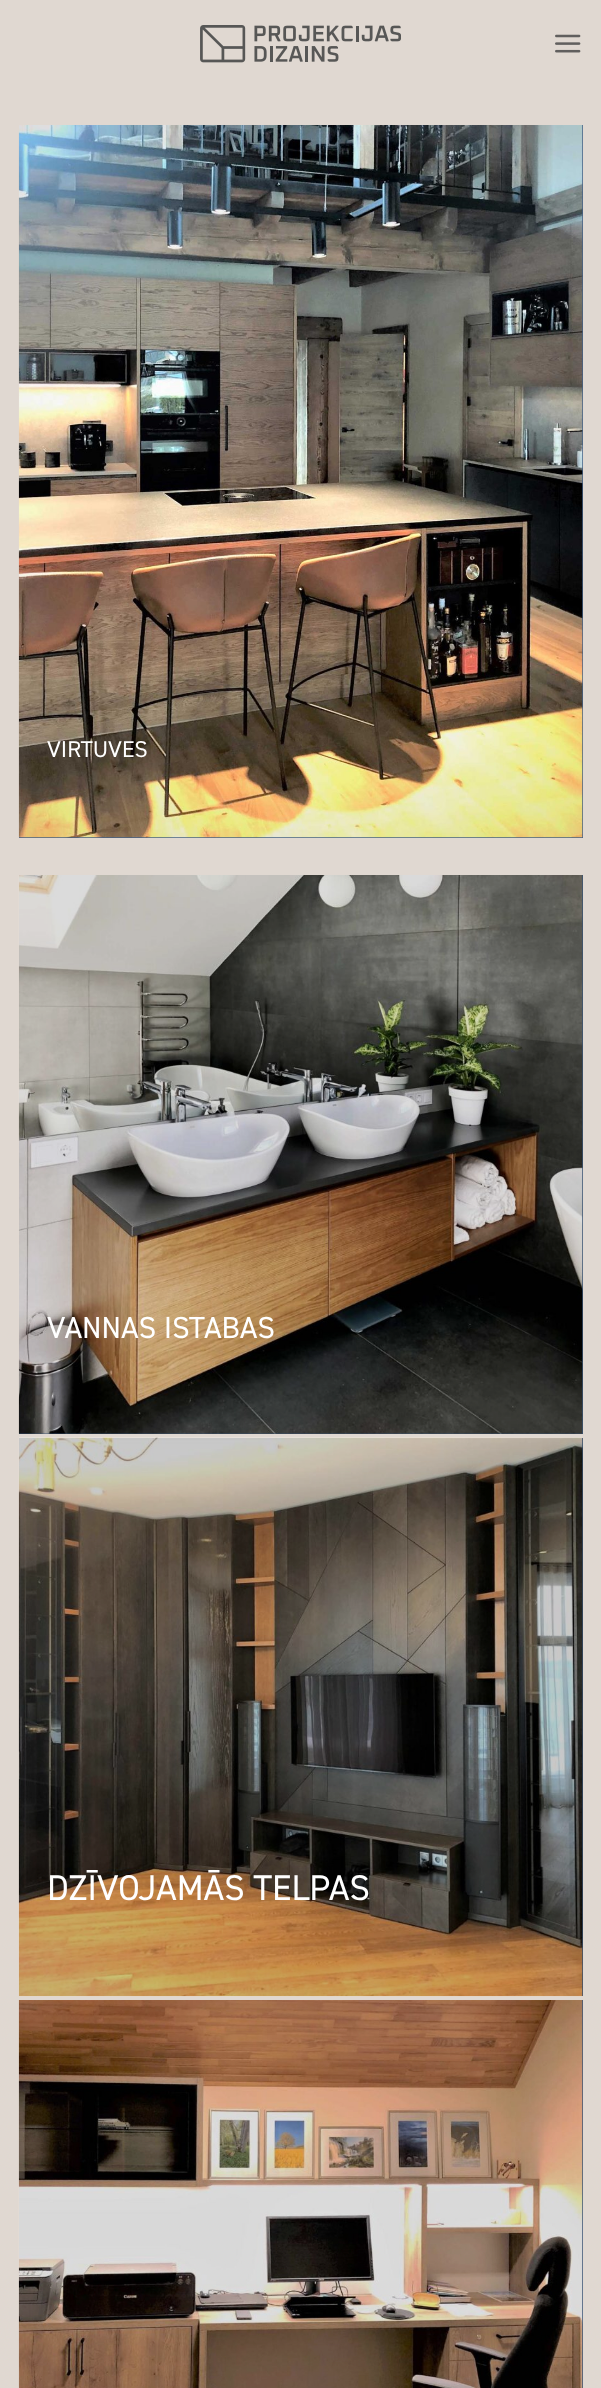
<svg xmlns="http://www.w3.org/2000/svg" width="601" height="2388">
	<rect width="100%" height="100%" fill="#E0D8D1" />
	<image x="200" y="25" width="201" height="38" href="assets/img1.png" />
	<image x="555" y="34" width="26" height="19" href="assets/img2.png" />
	<rect x="19" y="125" width="564" height="713" fill="#446084" />
	<image x="18" y="125" width="565" height="713" href="assets/img3.png" />
	<text x="47" y="757" font-family="'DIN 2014'" font-size="23" fill="#FFFFFF">VIRTUVES</text>
	<rect x="19" y="875" width="564" height="559" fill="#3A5372" />
	<image x="18" y="875" width="565" height="559" href="assets/img4.png" />
	<text x="47" y="1338" font-family="'DIN 2014'" font-size="30.5" fill="#FFFFFF">VANNAS ISTABAS</text>
	<rect x="582" y="1438" width="1" height="558" fill="#364C68" />
	<image x="18" y="1437" width="565" height="560" href="assets/img5.png" />
	<text x="47" y="1900" font-family="'DIN 2014'" font-size="35.75" fill="#FFFFFF">DZĪVOJAMĀS TELPAS</text>
	<rect x="582" y="2000" width="1" height="388" fill="#3C5474" />
	<image x="18" y="2000" width="565" height="388" href="assets/img6.png" />
</svg>
